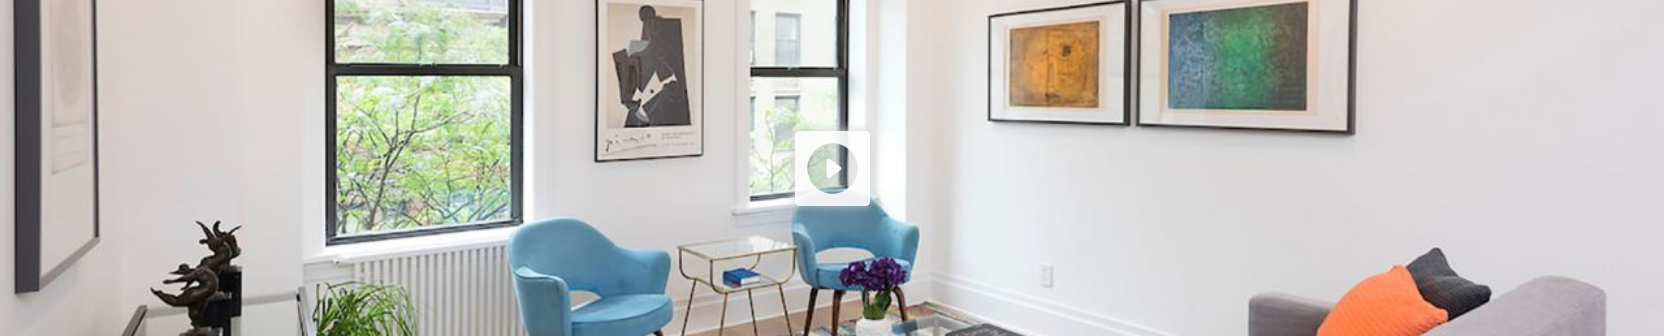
<svg xmlns="http://www.w3.org/2000/svg" width="1664" height="336">
	<defs>
		<clipPath id="clip1"><path d="M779 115H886V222H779ZM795 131H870V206H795Z" clip-rule="evenodd" /></clipPath>
	</defs>
	<rect width="100%" height="100%" fill="#FFFFFF" />
	<image x="0" y="0" width="1664" height="336" href="assets/img1.png" />
	<g clip-path="url(#clip1)">
		<rect x="795" y="131" width="75" height="75" fill="#CCCCCC" filter="blur(5px)" />
	</g>
	<rect x="795" y="131" width="75" height="75" fill="#000000" fill-opacity="0.1" />
	<image x="795" y="131" width="75" height="75" href="assets/img2.png" />
</svg>
